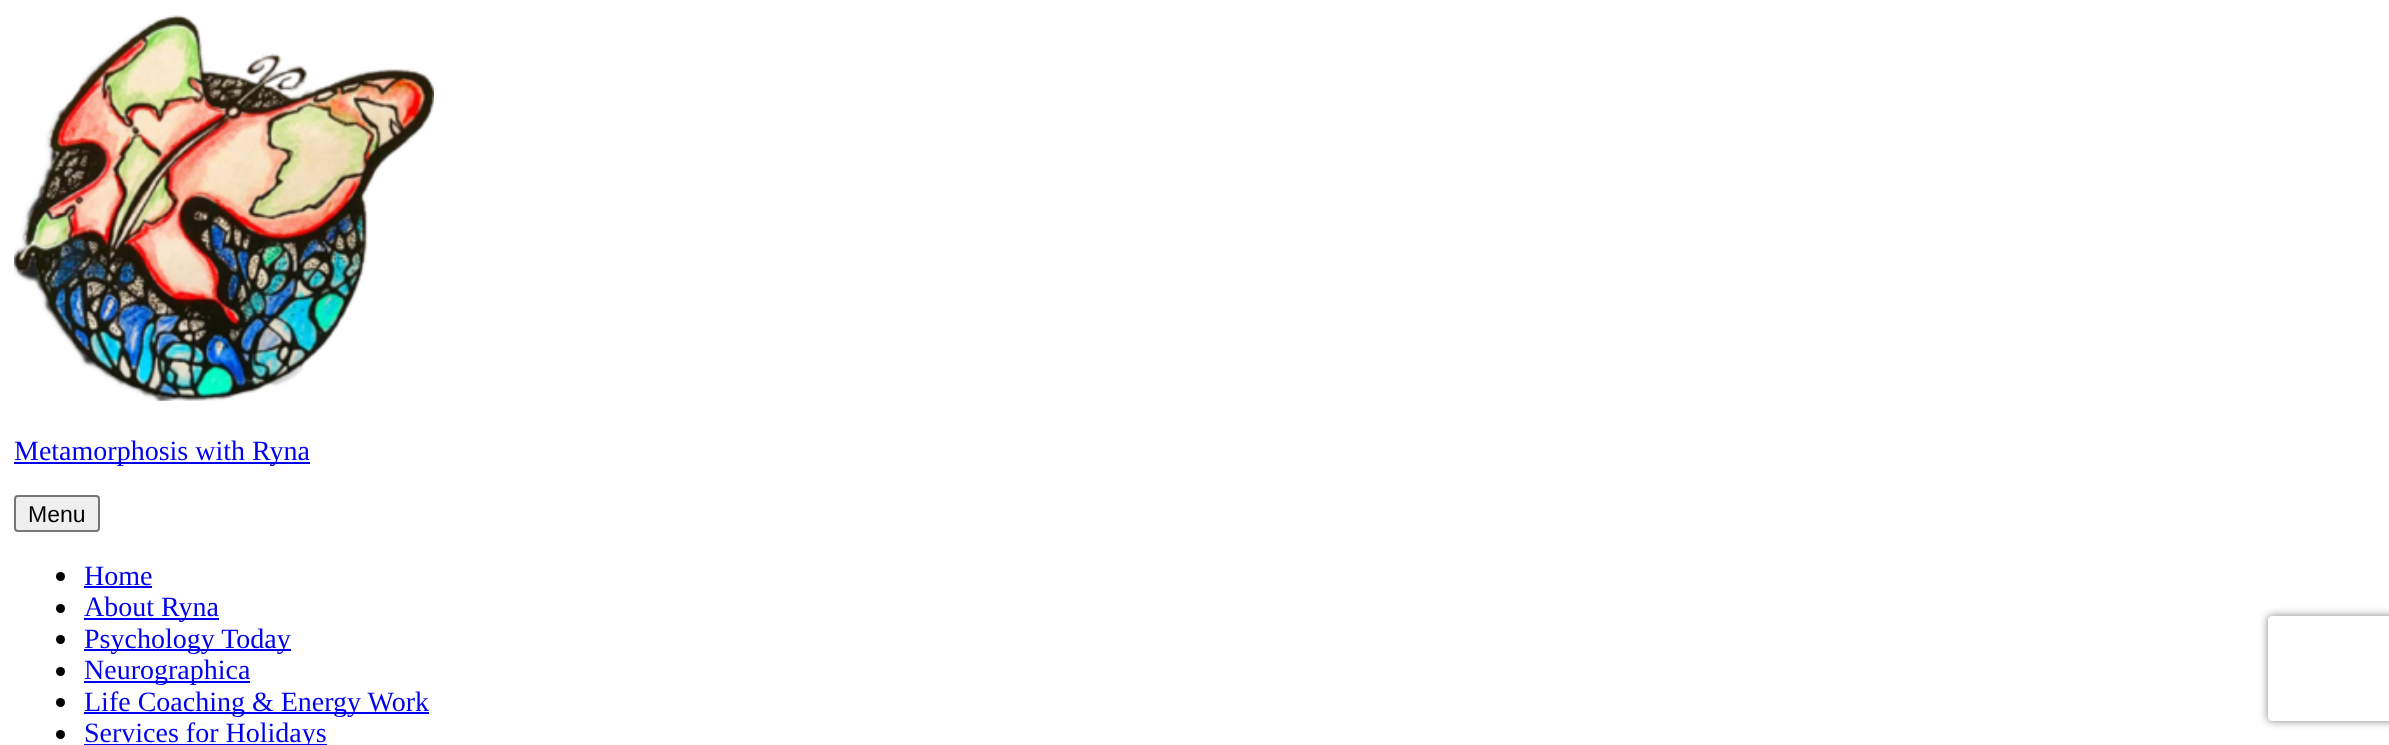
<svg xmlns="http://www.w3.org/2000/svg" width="2389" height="745">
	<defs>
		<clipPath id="clip1"><path d="M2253 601H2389V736H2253ZM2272 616H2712C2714 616 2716 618 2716 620V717C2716 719 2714 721 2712 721H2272C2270 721 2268 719 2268 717V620C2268 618 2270 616 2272 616Z" clip-rule="evenodd" /></clipPath>
	</defs>
	<rect width="100%" height="100%" fill="#FFFFFF" />
	<image x="14" y="15" width="420" height="386" href="assets/img1.png" />
	<rect x="14" y="462" width="296" height="2" fill="#0000EE" />
	<text x="14" y="460" font-family="Liberation Serif" font-size="28" fill="#0000EE">Metamorphosis with Ryna</text>
	<rect x="15" y="496" width="84" height="35" rx="3" fill="#EFEFEF" stroke="#767676" stroke-width="2" />
	<text x="28" y="522" font-family="Liberation Sans" font-size="23" fill="#000000">Menu</text>
	<circle cx="60.5" cy="576.5" r="4.5" fill="#000000" />
	<text x="84" y="585" font-family="Liberation Serif" font-size="28" fill="#0000EE">Home</text>
	<rect x="84" y="586" width="68" height="2" fill="#0000EE" />
	<circle cx="60.5" cy="608.5" r="4.5" fill="#000000" />
	<rect x="84" y="618" width="135" height="2" fill="#0000EE" />
	<text x="84" y="616" font-family="Liberation Serif" font-size="28" fill="#0000EE">About Ryna</text>
	<circle cx="60.5" cy="639.5" r="4.5" fill="#000000" />
	<rect x="84" y="649" width="207" height="2" fill="#0000EE" />
	<text x="84" y="648" font-family="Liberation Serif" font-size="28" fill="#0000EE">Psychology Today</text>
	<circle cx="60.5" cy="671.5" r="4.5" fill="#000000" />
	<rect x="84" y="681" width="166" height="2" fill="#0000EE" />
	<text x="84" y="679" font-family="Liberation Serif" font-size="28" fill="#0000EE">Neurographica</text>
	<circle cx="60.5" cy="702.5" r="4.5" fill="#000000" />
	<rect x="84" y="712" width="345" height="2" fill="#0000EE" />
	<text x="84" y="711" font-family="Liberation Serif" font-size="28" fill="#0000EE">Life Coaching &amp; Energy Work</text>
	<circle cx="60.5" cy="734.5" r="4.5" fill="#000000" />
	<rect x="84" y="744" width="243" height="1" fill="#0000EE" />
	<text x="84" y="742" font-family="Liberation Serif" font-size="28" fill="#0000EE">Services for Holidays</text>
	<g clip-path="url(#clip1)">
		<rect x="2268" y="616" width="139" height="105" rx="4" fill="#808080" filter="blur(4.5px)" />
	</g>
</svg>
